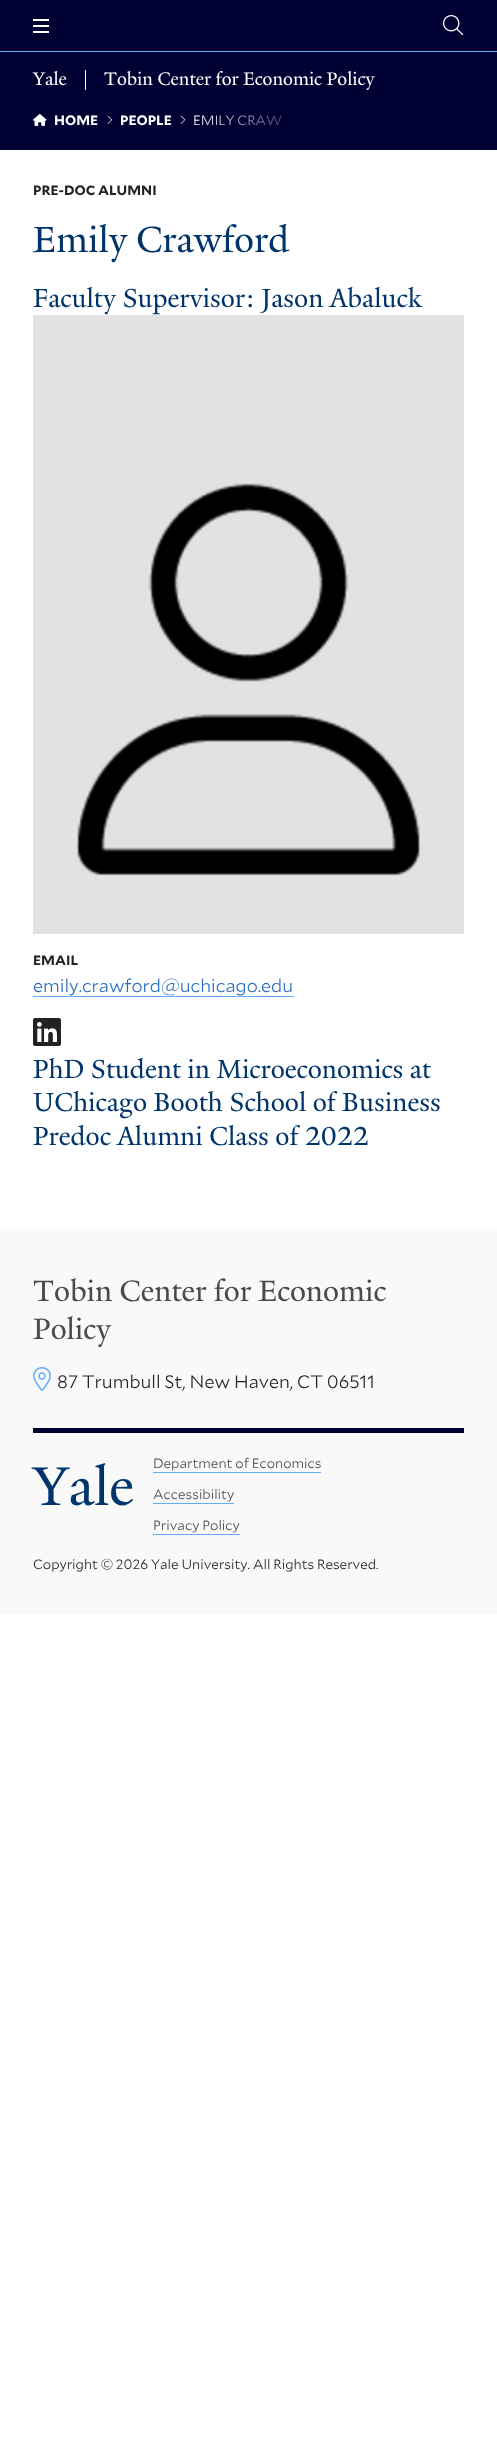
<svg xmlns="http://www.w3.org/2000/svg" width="497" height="2438">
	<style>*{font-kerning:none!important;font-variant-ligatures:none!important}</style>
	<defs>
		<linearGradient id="g1" gradientUnits="userSpaceOnUse" x1="193" y1="120" x2="320" y2="120"><stop offset="0" stop-color="#000033" stop-opacity="0" /><stop offset="1" stop-color="#000033" /></linearGradient>
	</defs>
	<rect width="100%" height="100%" fill="#FFFFFF" />
	<rect x="0" y="0" width="497" height="150" fill="#000033" />
	<rect x="33" y="25" width="16" height="2" fill="#FFFFFF" />
	<rect x="33" y="19" width="16" height="2" fill="#FFFFFF" />
	<rect x="33" y="31" width="16" height="2" fill="#FFFFFF" />
	<image x="443" y="15" width="21" height="21" href="assets/img1.png" />
	<rect x="0" y="51" width="497" height="1" fill="#63AAFF" />
	<rect x="85" y="70" width="1" height="20" fill="#FFFFFF" />
	<g font-family="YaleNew" font-size="19.75" fill="#FFFFFF">
		<text x="33" y="85">Yale</text>
		<text x="104" y="85">Tobin Center for Economic Policy</text>
	</g>
	<image x="33" y="114" width="14" height="12" href="assets/img2.png" />
	<text x="54" y="125" font-family="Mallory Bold" font-size="13.5" font-weight="700" fill="#FFFFFF">HOME</text>
	<image x="107" y="115" width="5" height="9" href="assets/img3.png" />
	<text x="120" y="125" font-family="Mallory Bold" font-size="13.5" font-weight="700" fill="#FFFFFF">PEOPLE</text>
	<image x="180" y="115" width="6" height="9" href="assets/img4.png" />
	<text x="193" y="125" font-family="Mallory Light" font-size="13.5" font-weight="300" fill="#FFFFFF">EMILY CRAW</text>
	<rect x="196" y="115" width="86" height="11" fill="url(#g1)" />
	<text x="33" y="195" font-family="Mallory Bold" font-size="13.5" font-weight="700" fill="#222222">PRE-DOC ALUMNI</text>
	<text x="33" y="252" font-family="YaleNew" font-size="39.5" fill="#00356B">Emily Crawford</text>
	<text x="33" y="307" font-family="YaleNew" font-size="28.25" fill="#00356B">Faculty Supervisor: Jason Abaluck</text>
	<text x="33" y="965" font-family="Mallory Bold" font-size="13.5" font-weight="700" fill="#222222">EMAIL</text>
	<text x="33" y="992" font-family="Mallory Light" font-size="18" font-weight="300" fill="#286DC0">emily.crawford@uchicago.edu</text>
	<rect x="33" y="996" width="261" height="1" fill="#63AAFF" />
	<image x="33" y="1018" width="28" height="28" href="assets/img5.png" />
	<image x="33" y="315" width="431" height="619" href="assets/img6.png" />
	<g font-family="YaleNew" font-size="28.25" fill="#00356B">
		<text x="33" y="1078">PhD Student in Microeconomics at</text>
		<text x="33" y="1111">UChicago Booth School of Business</text>
		<text x="33" y="1145">Predoc Alumni Class of 2022</text>
	</g>
	<rect x="0" y="1229" width="497" height="385" fill="#F9F9F9" />
	<g font-family="YaleNew" font-size="32" fill="#4A4A4A">
		<text x="33" y="1301">Tobin Center for Economic</text>
		<text x="33" y="1339">Policy</text>
	</g>
	<image x="33" y="1367" width="18" height="24" href="assets/img7.png" />
	<text x="57" y="1388" font-family="Mallory Light" font-size="18" font-weight="300" fill="#222222">87 Trumbull St, New Haven, CT 06511</text>
	<rect x="33" y="1428" width="431" height="5" fill="#000033" />
	<text x="33" y="1505" font-family="YaleNew" font-size="59" fill="#00356B">Yale</text>
	<text x="153" y="1468" font-family="Mallory Light" font-size="13.5" font-weight="300" fill="#4A4A4A">Department of Economics</text>
	<rect x="153" y="1472" width="168" height="1" fill="#63AAFF" />
	<text x="153" y="1499" font-family="Mallory Light" font-size="13.5" font-weight="300" fill="#4A4A4A">Accessibility</text>
	<rect x="153" y="1503" width="81" height="1" fill="#63AAFF" />
	<text x="153" y="1530" font-family="Mallory Light" font-size="13.5" font-weight="300" fill="#4A4A4A">Privacy Policy</text>
	<rect x="153" y="1534" width="87" height="1" fill="#63AAFF" />
	<text x="33" y="1569" font-family="Mallory Light" font-size="13.5" font-weight="300" fill="#222222">Copyright © 2026 Yale University. All Rights Reserved.</text>
</svg>
